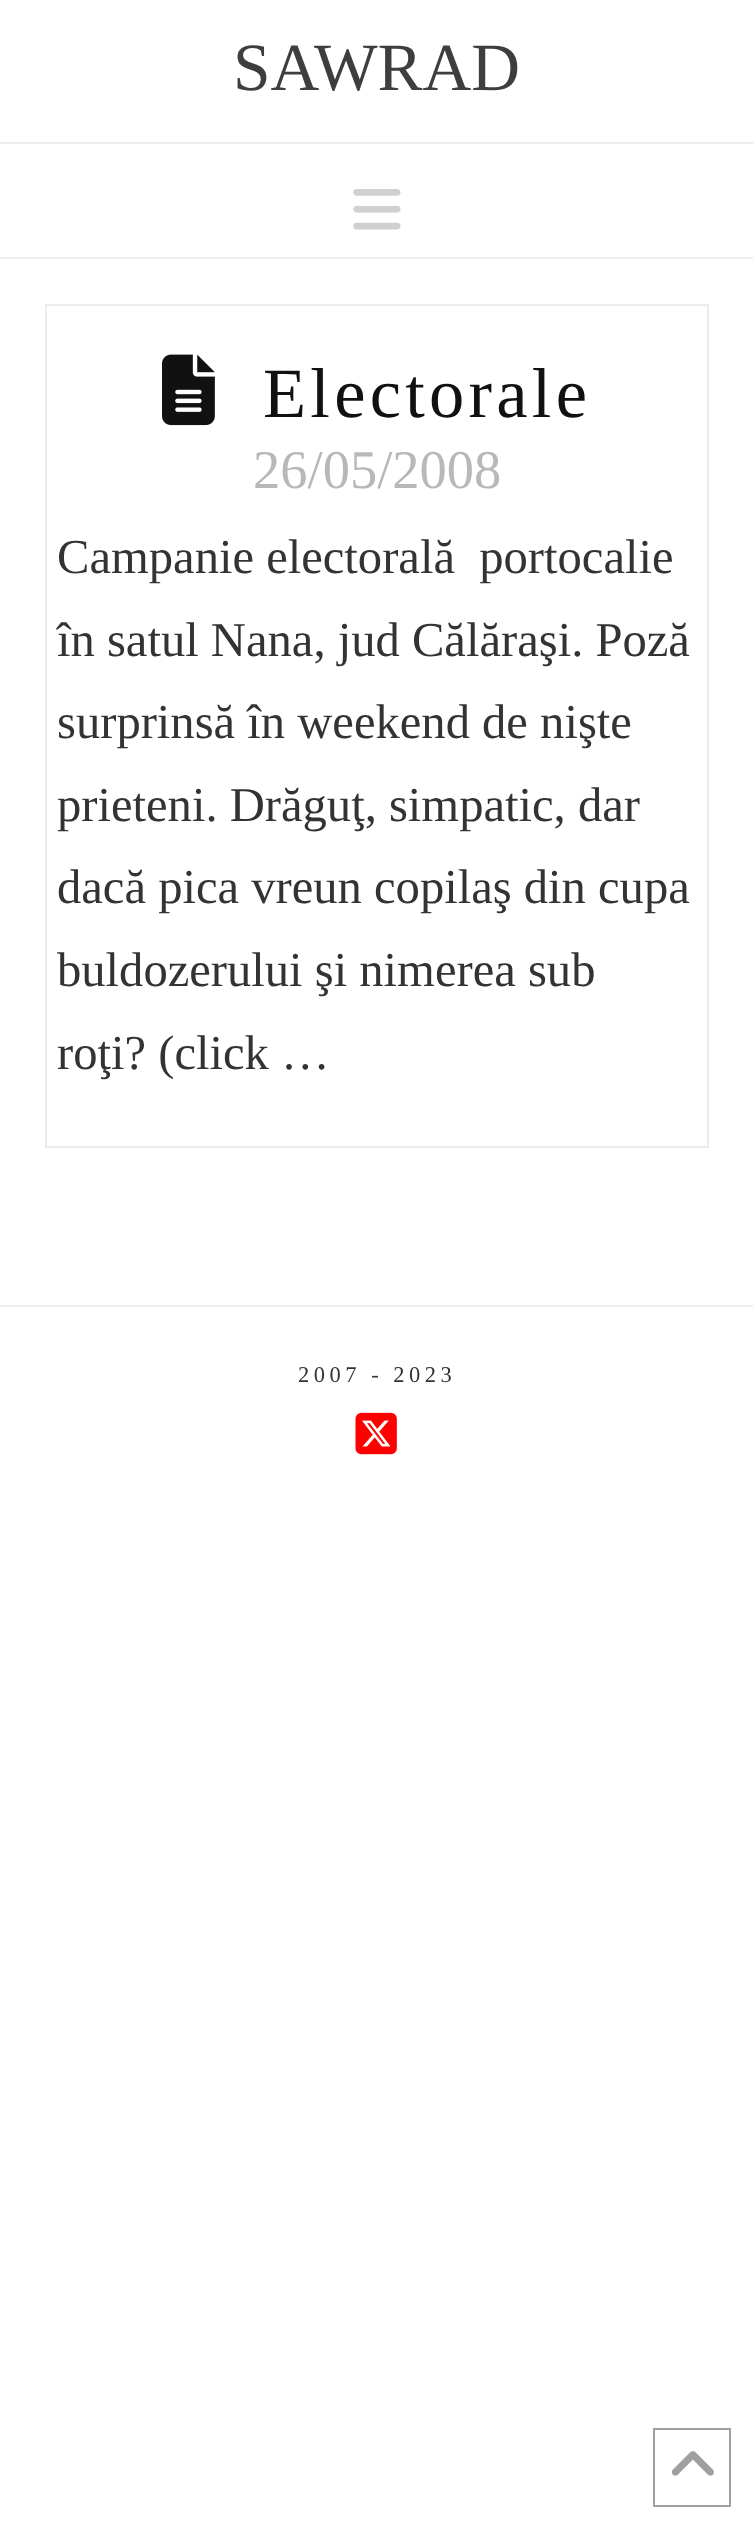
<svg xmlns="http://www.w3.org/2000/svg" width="753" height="2528">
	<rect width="100%" height="100%" fill="#FFFFFF" />
	<rect x="0" y="142" width="753" height="2" fill="#ECECEC" />
	<text x="233" y="90" font-family="Liberation Serif" font-size="67.5" fill="#3E3E3E">SAWRAD</text>
	<rect x="0" y="257" width="753" height="2" fill="#ECECEC" />
	<image x="353" y="189" width="48" height="41" href="assets/img1.png" />
	<rect x="46" y="305" width="662" height="842" fill="none" stroke="#ECECEC" stroke-width="2" />
	<image x="162" y="354" width="53" height="72" href="assets/img2.png" />
	<text x="263" y="417" font-family="Liberation Serif" font-size="70.5" letter-spacing="4.25" fill="#111111">Electorale</text>
	<text x="253" y="488" font-family="Liberation Serif" font-size="54.5" fill="#B8B8B8">26/05/2008</text>
	<g font-family="Liberation Serif" font-size="48.6" fill="#333333">
		<text x="57" y="573" xml:space="preserve">Campanie electorală  portocalie</text>
		<text x="57" y="656">în satul Nana, jud Călăraşi. Poză</text>
		<text x="57" y="738">surprinsă în weekend de nişte</text>
		<text x="57" y="821">prieteni. Drăguţ, simpatic, dar</text>
		<text x="57" y="903">dacă pica vreun copilaş din cupa</text>
		<text x="57" y="986">buldozerului şi nimerea sub</text>
		<text x="57" y="1069">roţi? (click …</text>
	</g>
	<rect x="0" y="1305" width="753" height="2" fill="#ECECEC" />
	<text x="298" y="1382" font-family="Liberation Serif" font-size="22.5" letter-spacing="4.5" fill="#333333">2007 - 2023</text>
	<image x="355" y="1412" width="42" height="43" href="assets/img3.png" />
	<rect x="654" y="2429" width="76" height="77" fill="none" stroke="#9F9F9F" stroke-width="2" />
	<image x="671" y="2451" width="43" height="25" href="assets/img4.png" />
</svg>
